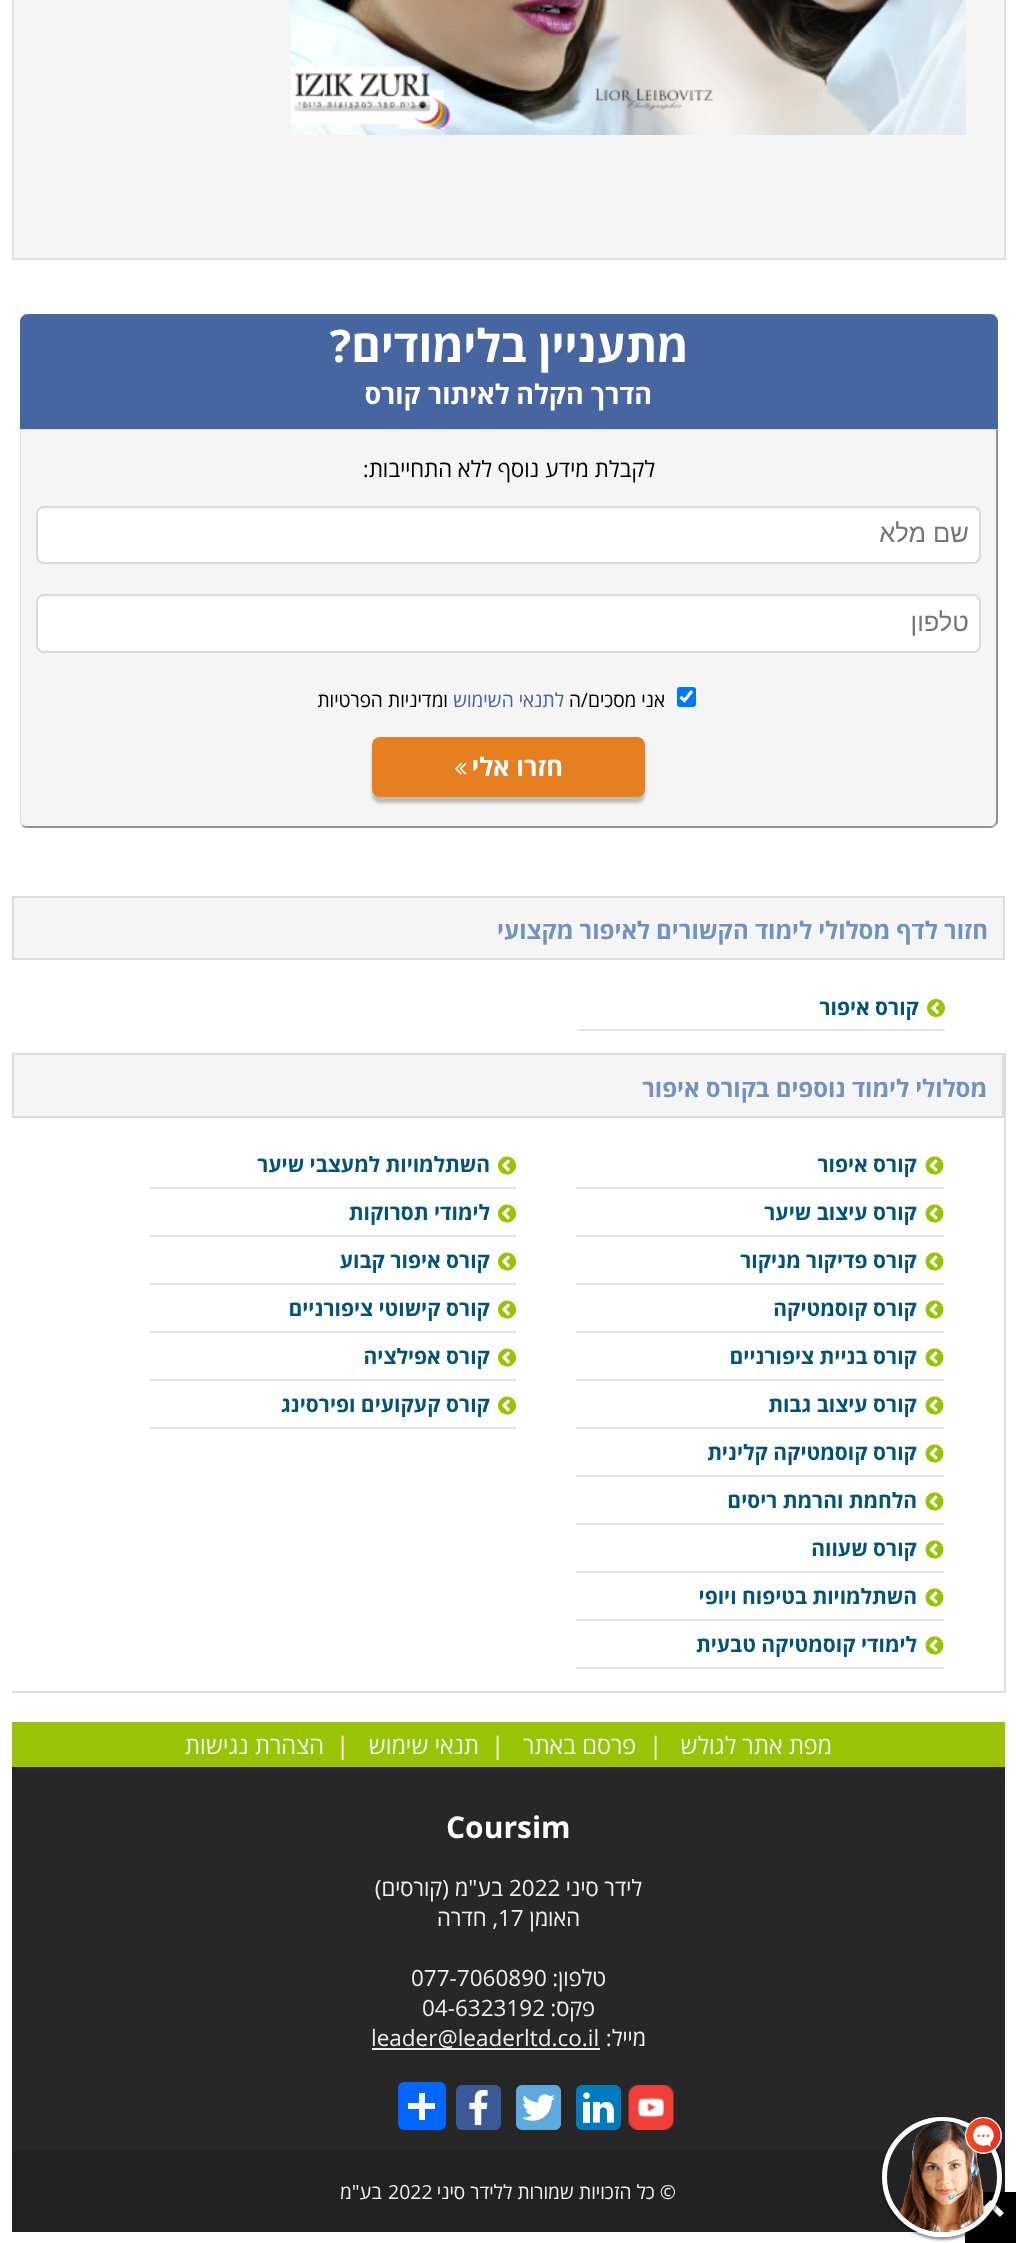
<svg xmlns="http://www.w3.org/2000/svg" width="1016" height="2243">
	<defs>
		<clipPath id="clip1"><path d="M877 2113H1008V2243H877ZM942 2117C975 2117 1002 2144 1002 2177C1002 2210 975 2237 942 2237C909 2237 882 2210 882 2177C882 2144 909 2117 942 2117Z" clip-rule="evenodd" /></clipPath>
	</defs>
	<rect width="100%" height="100%" fill="#FFFFFF" />
	<rect x="14" y="0" width="990" height="258" fill="#F5F5F5" />
	<rect x="1004" y="0" width="2" height="260" fill="#E1E1E1" />
	<rect x="12" y="258" width="993" height="2" fill="#E1E1E1" />
	<rect x="12" y="0" width="2" height="260" fill="#E1E1E1" />
	<image x="291" y="0" width="675" height="135" href="assets/img1.png" />
	<path d="M28 314H990C994.5 314 998 317.5 998 322V429H20V322C20 317.5 23.5 314 28 314Z" fill="#4765A0" />
	<text x="688" y="362" font-family="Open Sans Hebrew" font-size="45" font-weight="700" direction="rtl" fill="#FFFFFF">מתעניין בלימודים?</text>
	<text x="652" y="404" font-family="Open Sans Hebrew" font-size="27" font-weight="700" direction="rtl" fill="#FFFFFF">הדרך הקלה לאיתור קורס</text>
	<path d="M20 429H998V820C998 824.5 994.5 828 990 828H28C23.5 828 20 824.5 20 820Z" fill="#F5F5F5" />
	<path d="M20 429L21 430H996L998 429Z" fill="#DADADA" />
	<path d="M998 429V823L995 826L994 825C995 824 996 822 996 820V430Z" fill="#919191" />
	<path d="M27 828H990C992 828 994 827 995 826L994 825C993 826 991 826 990 826H27C26 826 24 826 23 825L22 826C23 827 25 828 27 828Z" fill="#919191" />
	<path d="M20 430V820C20 822 21 824 22 826L23 825C22 824 21 822 21 820V430Z" fill="#DADADA" />
	<text x="655" y="477" font-family="Open Sans Hebrew" font-size="22.5" direction="rtl" fill="#000000">לקבלת מידע נוסף ללא התחייבות:</text>
	<rect x="37" y="507" width="943" height="56" rx="7" fill="#FFFFFF" stroke="#DADADA" stroke-width="2" />
	<text x="969" y="542" font-family="Liberation Sans" font-size="25.5" direction="rtl" fill="#757575">שם מלא</text>
	<rect x="37" y="595" width="943" height="57" rx="7" fill="#FFFFFF" stroke="#DADADA" stroke-width="2" />
	<text x="969" y="631" font-family="Liberation Sans" font-size="25.5" direction="rtl" fill="#757575">טלפון</text>
	<rect x="677" y="687" width="19" height="20" rx="3" fill="#0075FF" />
	<path d="M680.5 697L684.5 700.5L692 691" fill="none" stroke="#FFFFFF" stroke-width="3.1" />
	<text x="665" y="707" font-family="Open Sans Hebrew" font-size="19.5" direction="rtl" fill="#000000">אני מסכים/ה</text>
	<text x="564" y="707" font-family="Open Sans Hebrew" font-size="19.5" direction="rtl" fill="#4765A0">לתנאי השימוש</text>
	<text x="448" y="707" font-family="Open Sans Hebrew" font-size="19.5" direction="rtl" fill="#000000">ומדיניות הפרטיות</text>
	<rect x="372" y="743" width="273" height="60" rx="8" fill="#BBBBBB" filter="blur(1.5px)" />
	<rect x="372" y="737" width="273" height="60" rx="8" fill="#E67E22" />
	<text x="563" y="776" font-family="Open Sans Hebrew" font-size="25.5" font-weight="700" direction="rtl" fill="#FFFFFF">חזרו אלי</text>
	<image x="455" y="763" width="12" height="12" href="assets/img2.png" />
	<rect x="13" y="897" width="991" height="62" fill="#F5F5F5" stroke="#DDDDDD" stroke-width="2" />
	<g font-family="Open Sans Hebrew" font-size="24" font-weight="700" direction="rtl" fill="#7092BE">
		<text x="988" y="939">חזור לדף מסלולי לימוד הקשורים ל</text>
		<text x="637" y="939">איפור מקצועי</text>
	</g>
	<rect x="578" y="1029" width="367" height="2" fill="#E4E4E4" />
	<image x="927" y="999" width="18" height="18" href="assets/img3.png" />
	<text x="919" y="1015" font-family="Open Sans Hebrew" font-size="21" font-weight="700" direction="rtl" fill="#015379">קורס איפור</text>
	<rect x="1004" y="1053" width="2" height="639" fill="#DDDDDD" />
	<rect x="12" y="1691" width="993" height="2" fill="#DDDDDD" />
	<rect x="13" y="1054" width="990" height="63" fill="#F5F5F5" stroke="#DDDDDD" stroke-width="2" />
	<g font-family="Open Sans Hebrew" font-size="24" font-weight="700" direction="rtl" fill="#7092BE">
		<text x="987" y="1097">מסלולי לימוד נוספים ב</text>
		<text x="756" y="1097">קורס איפור</text>
	</g>
	<rect x="576" y="1187" width="368" height="2" fill="#E4E4E4" />
	<image x="925" y="1156" width="19" height="19" href="assets/img4.png" />
	<text x="917" y="1172" font-family="Open Sans Hebrew" font-size="21" font-weight="700" direction="rtl" fill="#015379">קורס איפור</text>
	<rect x="576" y="1235" width="368" height="2" fill="#E4E4E4" />
	<image x="925" y="1204" width="19" height="19" href="assets/img4.png" />
	<text x="917" y="1220" font-family="Open Sans Hebrew" font-size="21" font-weight="700" direction="rtl" fill="#015379">קורס עיצוב שיער</text>
	<rect x="576" y="1283" width="368" height="2" fill="#E4E4E4" />
	<image x="925" y="1252" width="19" height="19" href="assets/img4.png" />
	<text x="917" y="1268" font-family="Open Sans Hebrew" font-size="21" font-weight="700" direction="rtl" fill="#015379">קורס פדיקור מניקור</text>
	<rect x="576" y="1331" width="368" height="2" fill="#E4E4E4" />
	<image x="925" y="1300" width="19" height="19" href="assets/img4.png" />
	<text x="917" y="1316" font-family="Open Sans Hebrew" font-size="21" font-weight="700" direction="rtl" fill="#015379">קורס קוסמטיקה</text>
	<rect x="576" y="1379" width="368" height="2" fill="#E4E4E4" />
	<image x="925" y="1348" width="19" height="19" href="assets/img4.png" />
	<text x="917" y="1364" font-family="Open Sans Hebrew" font-size="21" font-weight="700" direction="rtl" fill="#015379">קורס בניית ציפורניים</text>
	<rect x="576" y="1427" width="368" height="2" fill="#E4E4E4" />
	<image x="925" y="1396" width="19" height="19" href="assets/img4.png" />
	<text x="917" y="1412" font-family="Open Sans Hebrew" font-size="21" font-weight="700" direction="rtl" fill="#015379">קורס עיצוב גבות</text>
	<rect x="149" y="1187" width="367" height="2" fill="#E4E4E4" />
	<image x="498" y="1156" width="18" height="19" href="assets/img5.png" />
	<text x="490" y="1172" font-family="Open Sans Hebrew" font-size="21" font-weight="700" direction="rtl" fill="#015379">השתלמויות למעצבי שיער</text>
	<rect x="149" y="1235" width="367" height="2" fill="#E4E4E4" />
	<image x="498" y="1204" width="18" height="19" href="assets/img5.png" />
	<text x="490" y="1220" font-family="Open Sans Hebrew" font-size="21" font-weight="700" direction="rtl" fill="#015379">לימודי תסרוקות</text>
	<rect x="149" y="1283" width="367" height="2" fill="#E4E4E4" />
	<image x="498" y="1252" width="18" height="19" href="assets/img5.png" />
	<text x="490" y="1268" font-family="Open Sans Hebrew" font-size="21" font-weight="700" direction="rtl" fill="#015379">קורס איפור קבוע</text>
	<rect x="149" y="1331" width="367" height="2" fill="#E4E4E4" />
	<image x="498" y="1300" width="18" height="19" href="assets/img5.png" />
	<text x="490" y="1316" font-family="Open Sans Hebrew" font-size="21" font-weight="700" direction="rtl" fill="#015379">קורס קישוטי ציפורניים</text>
	<rect x="149" y="1379" width="367" height="2" fill="#E4E4E4" />
	<image x="498" y="1348" width="18" height="19" href="assets/img5.png" />
	<text x="490" y="1364" font-family="Open Sans Hebrew" font-size="21" font-weight="700" direction="rtl" fill="#015379">קורס אפילציה</text>
	<rect x="149" y="1427" width="367" height="2" fill="#E4E4E4" />
	<image x="498" y="1396" width="18" height="19" href="assets/img5.png" />
	<text x="490" y="1412" font-family="Open Sans Hebrew" font-size="21" font-weight="700" direction="rtl" fill="#015379">קורס קעקועים ופירסינג</text>
	<rect x="576" y="1475" width="368" height="2" fill="#E4E4E4" />
	<image x="925" y="1444" width="19" height="19" href="assets/img4.png" />
	<text x="917" y="1460" font-family="Open Sans Hebrew" font-size="21" font-weight="700" direction="rtl" fill="#015379">קורס קוסמטיקה קלינית</text>
	<rect x="576" y="1523" width="368" height="2" fill="#E4E4E4" />
	<image x="925" y="1492" width="19" height="19" href="assets/img4.png" />
	<text x="917" y="1508" font-family="Open Sans Hebrew" font-size="21" font-weight="700" direction="rtl" fill="#015379">הלחמת והרמת ריסים</text>
	<rect x="576" y="1571" width="368" height="2" fill="#E4E4E4" />
	<image x="925" y="1540" width="19" height="19" href="assets/img4.png" />
	<text x="917" y="1556" font-family="Open Sans Hebrew" font-size="21" font-weight="700" direction="rtl" fill="#015379">קורס שעווה</text>
	<rect x="576" y="1619" width="368" height="2" fill="#E4E4E4" />
	<image x="925" y="1588" width="19" height="19" href="assets/img4.png" />
	<text x="917" y="1604" font-family="Open Sans Hebrew" font-size="21" font-weight="700" direction="rtl" fill="#015379">השתלמויות בטיפוח ויופי</text>
	<rect x="576" y="1667" width="368" height="2" fill="#E4E4E4" />
	<image x="925" y="1636" width="19" height="19" href="assets/img4.png" />
	<text x="917" y="1652" font-family="Open Sans Hebrew" font-size="21" font-weight="700" direction="rtl" fill="#015379">לימודי קוסמטיקה טבעית</text>
	<rect x="12" y="2151" width="993" height="81" fill="#222222" />
	<rect x="965" y="2192" width="51" height="51" fill="#000000" />
	<image x="980" y="2200" width="24" height="17" href="assets/img6.png" />
	<rect x="12" y="1767" width="993" height="384" fill="#272727" />
	<rect x="12" y="1722" width="993" height="45" fill="#99C405" />
	<text x="832" y="1754" font-family="Open Sans Hebrew" font-size="24" direction="rtl" fill="#EEEEEE">מפת אתר לגולש</text>
	<text x="649" y="1754" font-family="Open Sans Hebrew" font-size="24" fill="#FFFFFF">|</text>
	<text x="636" y="1754" font-family="Open Sans Hebrew" font-size="24" direction="rtl" fill="#EEEEEE">פרסם באתר</text>
	<text x="491" y="1754" font-family="Open Sans Hebrew" font-size="24" fill="#FFFFFF">|</text>
	<text x="479" y="1754" font-family="Open Sans Hebrew" font-size="24" direction="rtl" fill="#EEEEEE">תנאי שימוש</text>
	<text x="336" y="1754" font-family="Open Sans Hebrew" font-size="24" fill="#FFFFFF">|</text>
	<text x="324" y="1754" font-family="Open Sans Hebrew" font-size="24" direction="rtl" fill="#EEEEEE">הצהרת נגישות</text>
	<text x="446" y="1838" font-family="Open Sans Hebrew" font-size="30" font-weight="700" fill="#FFFFFF">Coursim</text>
	<text x="642" y="1896" font-family="Open Sans Hebrew" font-size="22.5" direction="rtl" fill="#EEEEEE">לידר סיני</text>
	<text x="509" y="1896" font-family="Open Sans Hebrew" font-size="22.5" fill="#EEEEEE">2022</text>
	<g font-family="Open Sans Hebrew" font-size="22.5" direction="rtl" fill="#EEEEEE">
		<text x="503" y="1896">בע"מ (קורסים)</text>
		<text x="580" y="1926">האומן</text>
	</g>
	<text x="498" y="1926" font-family="Open Sans Hebrew" font-size="22.5" fill="#EEEEEE">17</text>
	<g font-family="Open Sans Hebrew" font-size="22.5" direction="rtl" fill="#EEEEEE">
		<text x="498" y="1926">, חדרה</text>
		<text x="606" y="1986">טלפון:</text>
	</g>
	<text x="411" y="1986" font-family="Open Sans Hebrew" font-size="22.5" fill="#EEEEEE">077-7060890</text>
	<text x="595" y="2016" font-family="Open Sans Hebrew" font-size="22.5" direction="rtl" fill="#EEEEEE">פקס:</text>
	<text x="422" y="2016" font-family="Open Sans Hebrew" font-size="22.5" fill="#EEEEEE">04-6323192</text>
	<text x="646" y="2046" font-family="Open Sans Hebrew" font-size="22.5" direction="rtl" fill="#EEEEEE">מייל:</text>
	<rect x="372" y="2048" width="228" height="2" fill="#EEEEEE" />
	<text x="371" y="2046" font-family="Open Sans Hebrew" font-size="22.5" fill="#EEEEEE">leader@leaderltd.co.il</text>
	<image x="628" y="2085" width="46" height="45" href="assets/img7.png" />
	<image x="576" y="2085" width="45" height="45" href="assets/img8.png" />
	<image x="516" y="2085" width="45" height="45" href="assets/img9.png" />
	<image x="456" y="2085" width="45" height="45" href="assets/img10.png" />
	<rect x="398" y="2082" width="48" height="48" rx="6" fill="#0166FF" />
	<rect x="419" y="2093" width="6" height="27" fill="#FFFFFF" />
	<rect x="408" y="2103" width="27" height="6" fill="#FFFFFF" />
	<text x="676" y="2199" font-family="Open Sans Hebrew" font-size="19.5" direction="rtl" fill="#EEEEEE">© כל הזכויות שמורות ללידר סיני</text>
	<text x="388" y="2199" font-family="Open Sans Hebrew" font-size="19.5" fill="#EEEEEE">2022</text>
	<text x="382" y="2199" font-family="Open Sans Hebrew" font-size="19.5" direction="rtl" fill="#EEEEEE">בע"מ</text>
	<g clip-path="url(#clip1)">
		<rect x="881" y="2117" width="123" height="123" rx="61.5" fill="#000000" fill-opacity="0.4" filter="blur(1px)" />
	</g>
	<circle cx="942" cy="2177" r="57.5" fill="none" stroke="#FFFFFF" stroke-width="5" />
	<image x="899" y="2121" width="86" height="111" href="assets/img11.png" />
	<circle cx="983.5" cy="2135.5" r="17.5" fill="none" stroke="#FFFFFF" stroke-width="2" />
	<image x="966" y="2118" width="35" height="35" href="assets/img12.png" />
</svg>
